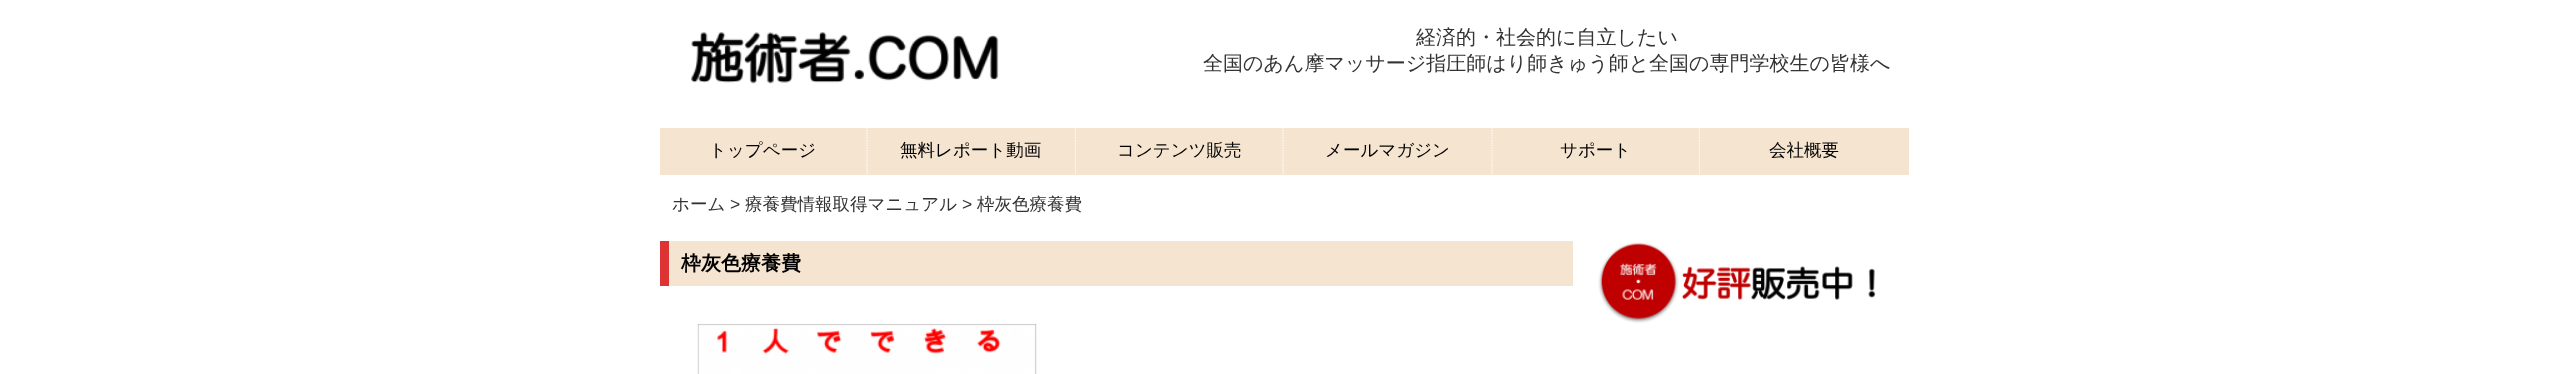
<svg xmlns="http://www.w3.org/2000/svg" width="2568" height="374">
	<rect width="100%" height="100%" fill="#FFFFFF" />
	<image x="691" y="32" width="308" height="52" href="assets/img1.png" />
	<g font-family="WenQuanYi Zen Hei" font-size="20" font-weight="500" fill="#333333">
		<text x="1416" y="44">経済的・社会的に自立したい</text>
		<text x="1203" y="70">全国のあん摩マッサージ指圧師はり師きゅう師と全国の専門学校生の皆様へ</text>
	</g>
	<rect x="660" y="128" width="416" height="47" fill="#F4E4D0" />
	<path d="M867 127.5V175" fill="none" stroke="#FFFFFF" stroke-width="1.2" stroke-dasharray="1.25 1.25" />
	<text x="709" y="156" font-family="WenQuanYi Zen Hei" font-size="17.5" font-weight="500" fill="#000000">トップページ</text>
	<path d="M1075.5 127.5V175" fill="none" stroke="#FFFFFF" stroke-width="1.2" stroke-dasharray="1.25 1.25" />
	<text x="900" y="156" font-family="WenQuanYi Zen Hei" font-size="17.5" font-weight="500" fill="#000000">無料レポート動画</text>
	<rect x="1076" y="128" width="624" height="47" fill="#F4E4D0" />
	<path d="M1283 127.5V175" fill="none" stroke="#FFFFFF" stroke-width="1.2" stroke-dasharray="1.25 1.25" />
	<text x="1117" y="156" font-family="WenQuanYi Zen Hei" font-size="17.5" font-weight="500" fill="#000000">コンテンツ販売</text>
	<path d="M1492 127.5V175" fill="none" stroke="#FFFFFF" stroke-width="1.2" stroke-dasharray="1.25 1.25" />
	<text x="1325" y="156" font-family="WenQuanYi Zen Hei" font-size="17.5" font-weight="500" fill="#000000">メールマガジン</text>
	<path d="M1699.5 127.5V175" fill="none" stroke="#FFFFFF" stroke-width="1.2" stroke-dasharray="1.25 1.25" />
	<text x="1560" y="156" font-family="WenQuanYi Zen Hei" font-size="17.5" font-weight="500" fill="#000000">サポート</text>
	<rect x="1700" y="128" width="209" height="47" fill="#F4E4D0" />
	<text x="1769" y="156" font-family="WenQuanYi Zen Hei" font-size="17.5" font-weight="500" fill="#000000">会社概要</text>
	<text x="672" y="210" font-family="WenQuanYi Zen Hei" font-size="17.5" font-weight="500" fill="#333333">ホーム</text>
	<text x="730" y="210" font-family="Liberation Sans" font-size="17.5" fill="#333333">&gt;</text>
	<text x="745" y="210" font-family="WenQuanYi Zen Hei" font-size="17.5" font-weight="500" fill="#333333">療養費情報取得マニュアル</text>
	<text x="962" y="210" font-family="Liberation Sans" font-size="17.5" fill="#333333">&gt;</text>
	<text x="977" y="210" font-family="WenQuanYi Zen Hei" font-size="17.5" font-weight="500" fill="#333333">枠灰色療養費</text>
	<rect x="669" y="241" width="904" height="45" fill="#F4E4D0" />
	<rect x="660" y="241" width="9" height="45" fill="#DD3333" />
	<text x="681" y="270" font-family="WenQuanYi Zen Hei" font-size="20" font-weight="700" fill="#000000">枠灰色療養費</text>
	<image x="697" y="323" width="340" height="51" href="assets/img2.png" />
	<image x="1598" y="242" width="278" height="81" href="assets/img3.png" />
</svg>
